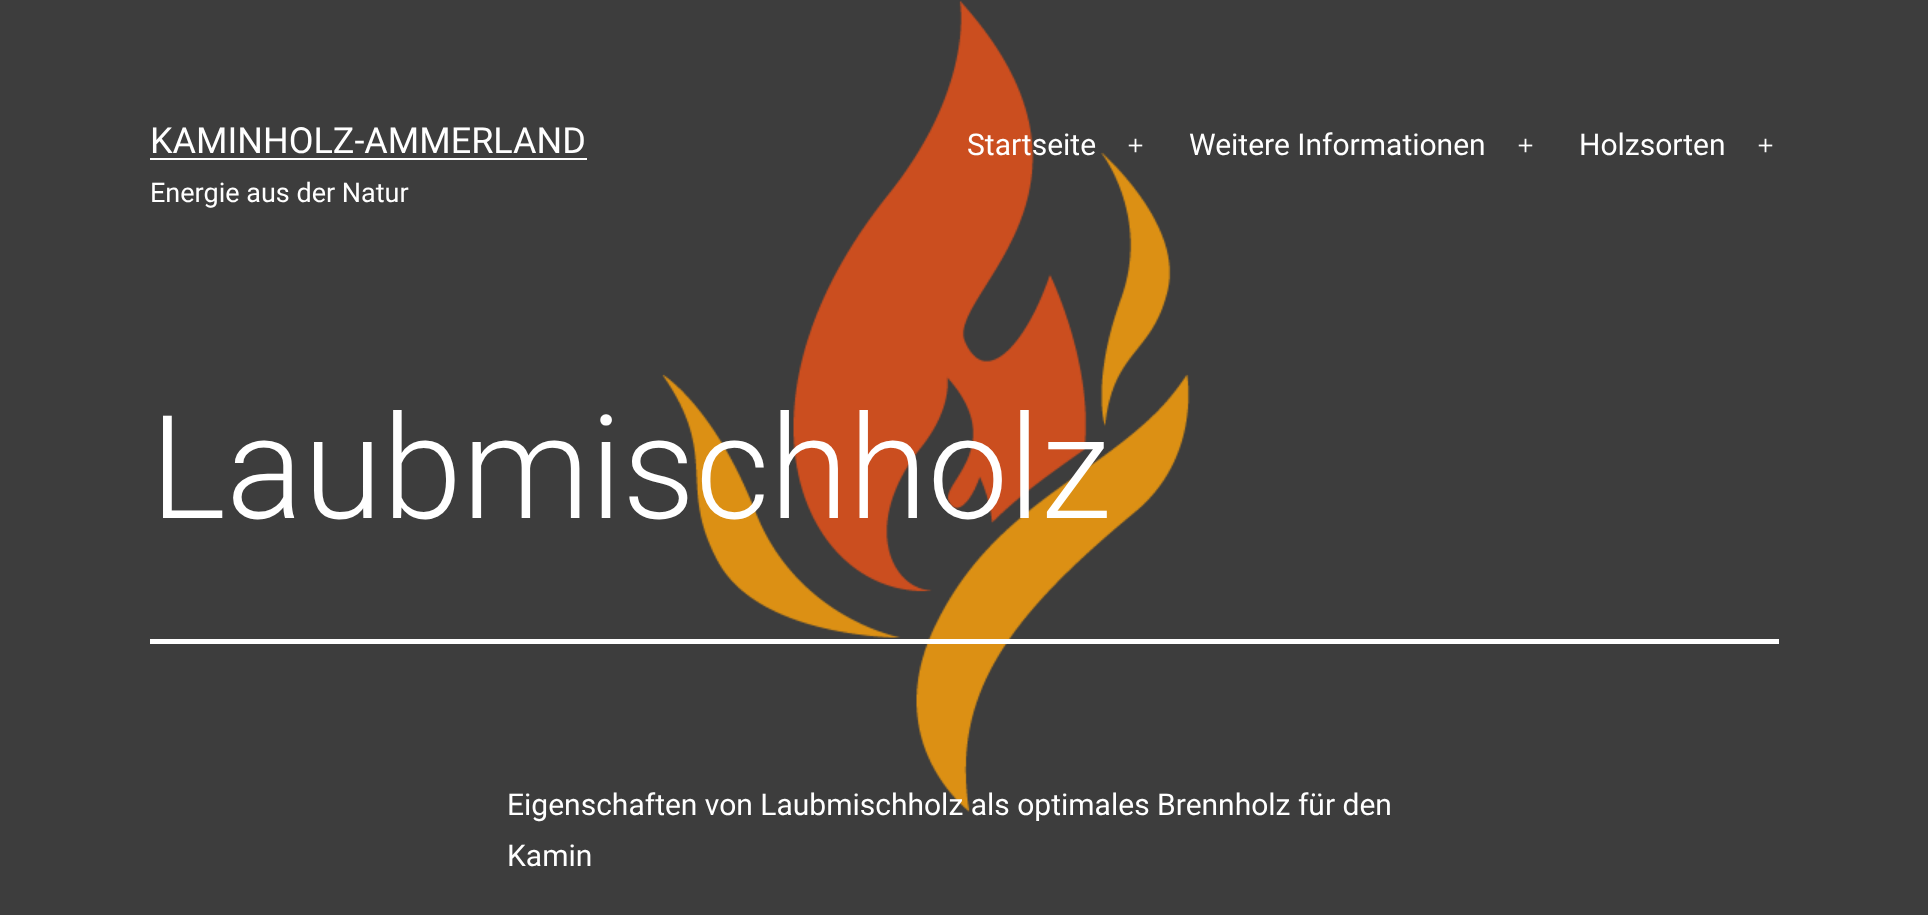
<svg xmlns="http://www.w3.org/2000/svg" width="1928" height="915">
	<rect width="100%" height="100%" fill="#3D3D3D" />
	<image x="662" y="0" width="528" height="812" href="assets/img1.png" />
	<text x="150" y="153" font-family="Roboto" font-size="36" fill="#FFFFFF">KAMINHOLZ-AMMERLAND</text>
	<rect x="150" y="158" width="437" height="2" fill="#FFFFFF" />
	<text x="150" y="202" font-family="Roboto" font-size="27" fill="#FFFFFF">Energie aus der Natur</text>
	<text x="967" y="155" font-family="Roboto" font-size="30" fill="#FFFFFF">Startseite</text>
	<image x="1128" y="138" width="15" height="15" href="assets/img2.png" />
	<text x="1189" y="155" font-family="Roboto" font-size="30" fill="#FFFFFF">Weitere Informationen</text>
	<image x="1518" y="138" width="15" height="15" href="assets/img2.png" />
	<text x="1579" y="155" font-family="Roboto" font-size="30" fill="#FFFFFF">Holzsorten</text>
	<image x="1758" y="138" width="15" height="15" href="assets/img2.png" />
	<rect x="150" y="639" width="1629" height="5" fill="#FFFFFF" />
	<text x="150" y="518" font-family="Roboto" font-size="144" font-weight="300" fill="#FFFFFF">Laubmischholz</text>
	<g font-family="Roboto" font-size="30" fill="#FFFFFF">
		<text x="507" y="815">Eigenschaften von Laubmischholz als optimales Brennholz für den</text>
		<text x="507" y="866">Kamin</text>
	</g>
</svg>
